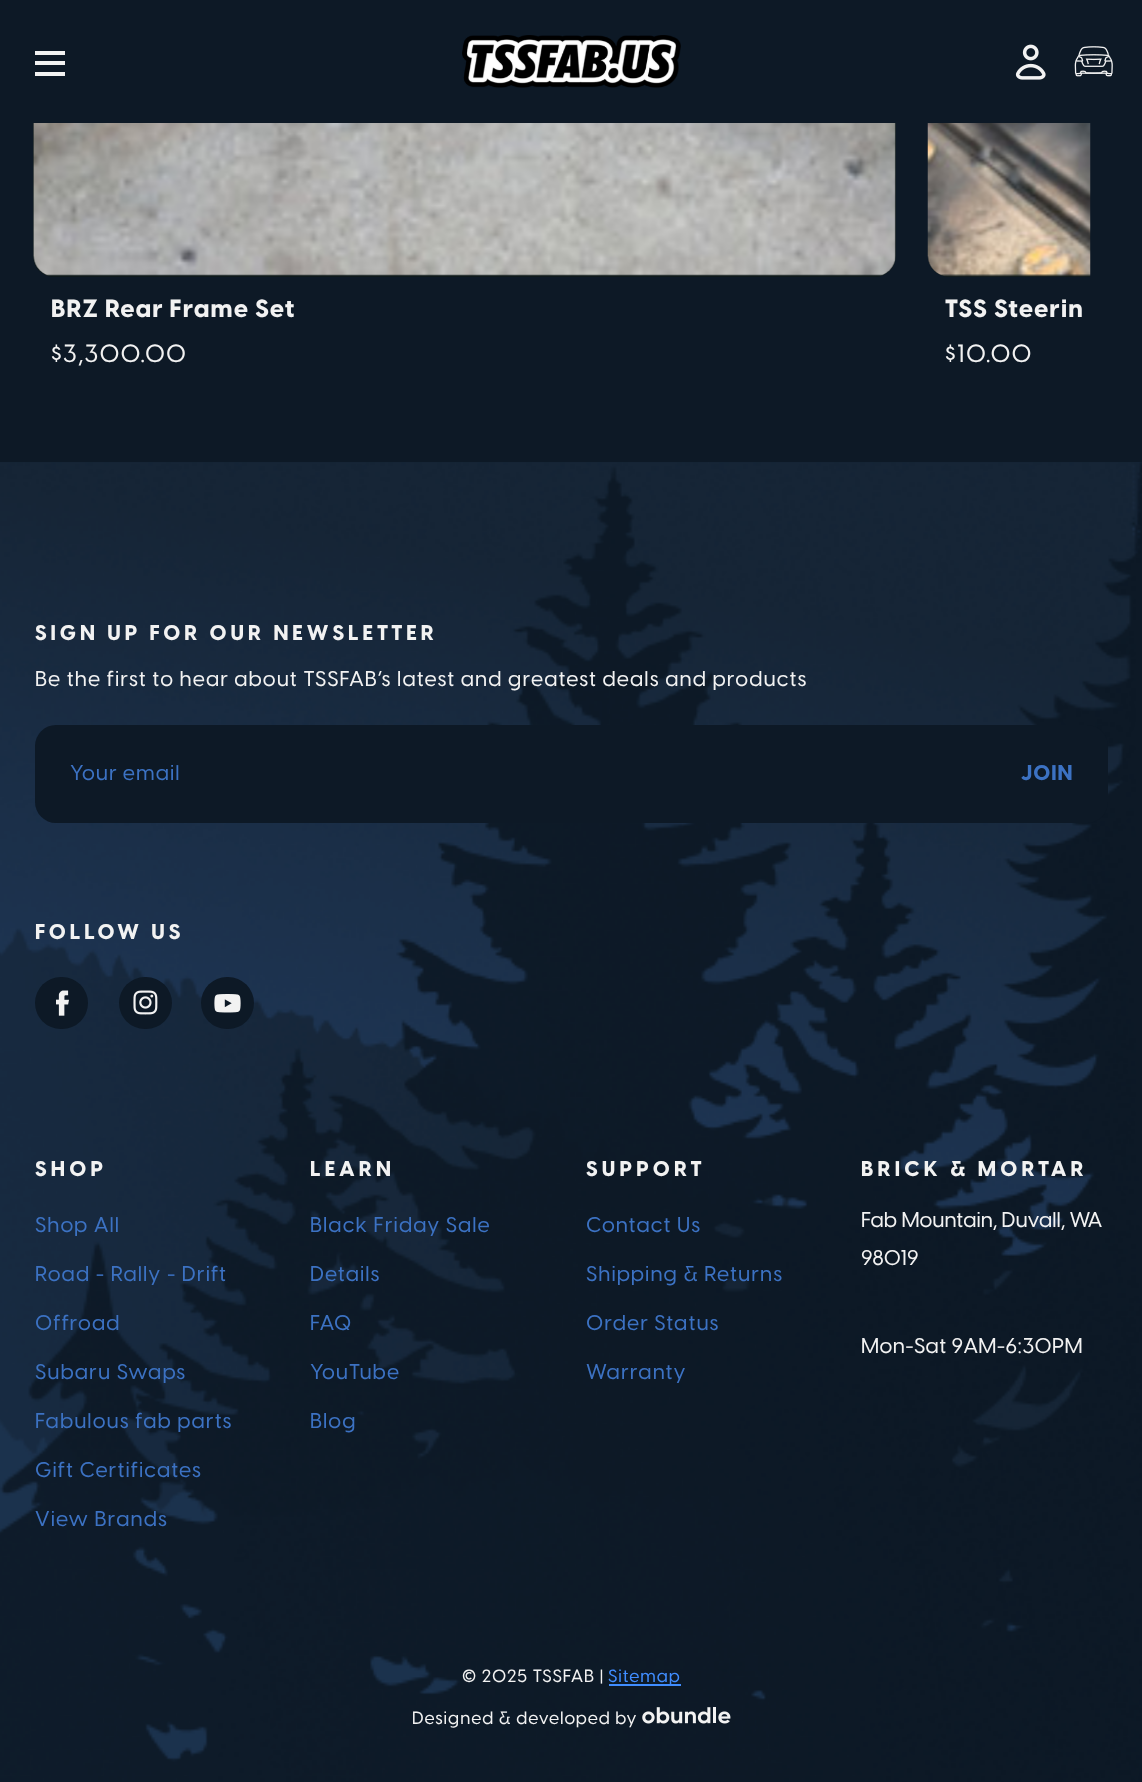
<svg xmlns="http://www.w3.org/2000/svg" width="1142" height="1782">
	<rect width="100%" height="100%" fill="#0D1926" />
	<rect x="33" y="-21" width="863" height="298" rx="21" fill="#0E191A" />
	<path d="M949-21H1090V277H949C937.5 277 928 267.5 928 256V0C928-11.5 937.5-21 949-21Z" fill="#0E191A" />
	<rect x="33" y="0" width="1057" height="123" fill="#0D1926" />
	<rect x="35" y="61" width="30" height="4" fill="#F2F2F2" />
	<rect x="35" y="51" width="30" height="4" fill="#F2F2F2" />
	<rect x="35" y="72" width="30" height="4" fill="#F2F2F2" />
	<image x="462" y="35" width="219" height="53" href="assets/img1.png" />
	<image x="1015" y="44" width="31" height="36" href="assets/img2.png" />
	<image x="1074" y="46" width="39" height="31" href="assets/img3.png" />
	<image x="33" y="123" width="863" height="153" href="assets/img4.png" />
	<text x="51" y="317" font-family="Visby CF" font-size="24.5" font-weight="800" letter-spacing="1.25" fill="#F2F2F2">BRZ Rear Frame Set</text>
	<text x="51" y="362" font-family="Visby CF" font-size="24.5" font-weight="500" letter-spacing="1.25" fill="#F2F2F2">$3,300.00</text>
	<image x="927" y="123" width="164" height="154" href="assets/img5.png" />
	<text x="945" y="317" font-family="Visby CF" font-size="24.5" font-weight="800" letter-spacing="1.25" fill="#F2F2F2">TSS Steerin</text>
	<text x="945" y="362" font-family="Visby CF" font-size="24.5" font-weight="500" letter-spacing="1.25" fill="#F2F2F2">$10.00</text>
	<rect x="0" y="462" width="1142" height="90" fill="#162536" />
	<image x="0" y="462" width="1142" height="1320" href="assets/img6.png" />
	<text x="35" y="640" font-family="Visby CF" font-size="21" font-weight="800" letter-spacing="4" fill="#F2F2F2">SIGN UP FOR OUR NEWSLETTER</text>
	<text x="35" y="686" font-family="Visby CF" font-size="21" font-weight="500" letter-spacing="1.05" fill="#F2F2F2">Be the first to hear about TSSFAB’s latest and greatest deals and products</text>
	<rect x="35" y="725" width="1073" height="98" rx="21" fill="#0D1926" />
	<text x="70" y="780" font-family="Visby CF" font-size="21" font-weight="500" letter-spacing="1" fill="#3C72C3">Your email</text>
	<text x="1021" y="780" font-family="Visby CF" font-size="21" font-weight="800" letter-spacing="1" fill="#3C72C3">JOIN</text>
	<text x="35" y="939" font-family="Visby CF" font-size="21" font-weight="800" letter-spacing="4" fill="#F2F2F2">FOLLOW US</text>
	<rect x="35" y="977" width="53" height="52" rx="26" fill="#0D1926" />
	<image x="56" y="990" width="13" height="26" href="assets/img7.png" />
	<rect x="119" y="977" width="53" height="52" rx="26" fill="#0D1926" />
	<image x="133" y="990" width="25" height="25" href="assets/img8.png" />
	<rect x="201" y="977" width="53" height="52" rx="26" fill="#0D1926" />
	<image x="214" y="994" width="27" height="19" href="assets/img9.png" />
	<text x="35" y="1176" font-family="Visby CF" font-size="21" font-weight="800" letter-spacing="4.25" fill="#F2F2F2">SHOP</text>
	<g font-family="Visby CF" font-size="21" font-weight="500" letter-spacing="1.05" fill="#3C72C3">
		<text x="35" y="1232">Shop All</text>
		<text x="35" y="1281">Road - Rally - Drift</text>
		<text x="35" y="1330">Offroad</text>
		<text x="35" y="1379">Subaru Swaps</text>
		<text x="35" y="1428">Fabulous fab parts</text>
		<text x="35" y="1477">Gift Certificates</text>
		<text x="35" y="1526">View Brands</text>
	</g>
	<text x="310" y="1176" font-family="Visby CF" font-size="21" font-weight="800" letter-spacing="4.25" fill="#F2F2F2">LEARN</text>
	<g font-family="Visby CF" font-size="21" font-weight="500" letter-spacing="1.05" fill="#3C72C3">
		<text x="310" y="1232">Black Friday Sale</text>
		<text x="310" y="1281">Details</text>
		<text x="310" y="1330">FAQ</text>
		<text x="310" y="1379">YouTube</text>
		<text x="310" y="1428">Blog</text>
	</g>
	<text x="586" y="1176" font-family="Visby CF" font-size="21" font-weight="800" letter-spacing="4.25" fill="#F2F2F2">SUPPORT</text>
	<g font-family="Visby CF" font-size="21" font-weight="500" letter-spacing="1.05" fill="#3C72C3">
		<text x="586" y="1232">Contact Us</text>
		<text x="586" y="1281">Shipping &amp; Returns</text>
		<text x="586" y="1330">Order Status</text>
		<text x="586" y="1379">Warranty</text>
	</g>
	<text x="861" y="1176" font-family="Visby CF" font-size="21" font-weight="800" letter-spacing="4.25" fill="#F2F2F2">BRICK &amp; MORTAR</text>
	<g font-family="Visby CF" font-size="21" font-weight="500" fill="#F2F2F2">
		<text x="861" y="1227">Fab Mountain, Duvall, WA</text>
		<text x="861" y="1265">98019</text>
	</g>
	<text x="861" y="1353" font-family="Visby CF" font-size="21" font-weight="500" letter-spacing="0.4" fill="#F2F2F2">Mon-Sat 9AM-6:30PM</text>
	<text x="462" y="1682" font-family="Visby CF" font-size="17.5" font-weight="500" letter-spacing="0.9" fill="#F2F2F2">© 2025 TSSFAB |</text>
	<rect x="609" y="1684" width="72" height="2" fill="#408DFF" />
	<text x="608" y="1682" font-family="Visby CF" font-size="17.5" font-weight="500" letter-spacing="0.9" fill="#408DFF">Sitemap</text>
	<text x="412" y="1724" font-family="Visby CF" font-size="17.5" font-weight="500" letter-spacing="0.9" fill="#F2F2F2">Designed &amp; developed by</text>
	<image x="642" y="1707" width="89" height="17" href="assets/img10.png" />
</svg>
